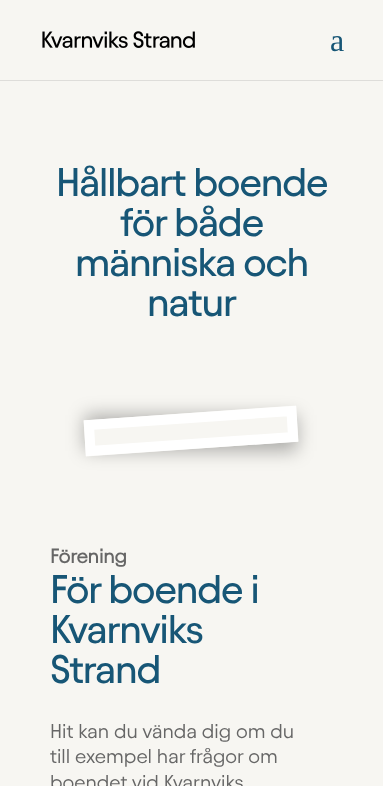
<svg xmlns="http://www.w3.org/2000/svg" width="383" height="786">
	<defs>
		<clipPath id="clip1"><path d="M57 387H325V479H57ZM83.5 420.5L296 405.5L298.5 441.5L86 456.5Z" clip-rule="evenodd" /></clipPath>
	</defs>
	<rect width="100%" height="100%" fill="#F7F6F2" />
	<rect x="0" y="80" width="383" height="1" fill="#DEDDDA" />
	<image x="42" y="31" width="153" height="17" href="assets/img1.png" />
	<text x="330" y="51" font-family="Liberation Serif" font-size="32" fill="#175676">a</text>
	<g font-family="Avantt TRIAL" font-size="40" font-weight="500" letter-spacing="-1.1" fill="#175676">
		<text x="56" y="196">Hållbart boende</text>
		<text x="120" y="236">för både</text>
		<text x="75" y="276">människa och</text>
		<text x="147" y="316">natur</text>
	</g>
	<g clip-path="url(#clip1)">
		<rect x="85" y="415" width="212" height="36" fill="#000000" fill-opacity="0.3" filter="blur(9px)" />
	</g>
	<path d="M89 425L291.5 411L293 437L90.5 451Z" fill="none" stroke="#FFFFFF" stroke-width="10" />
	<text x="50" y="563" font-family="Avantt TRIAL" font-size="20" font-weight="700" fill="#666666">Förening</text>
	<g font-family="Avantt TRIAL" font-size="40" font-weight="500" letter-spacing="-1.1" fill="#175676">
		<text x="50" y="603">För boende i</text>
		<text x="50" y="643">Kvarnviks</text>
		<text x="50" y="683">Strand</text>
	</g>
	<g font-family="Avantt TRIAL" font-size="20" fill="#666666">
		<text x="50" y="738">Hit kan du vända dig om du</text>
		<text x="50" y="763">till exempel har frågor om</text>
		<text x="50" y="789">boendet vid Kvarnviks</text>
	</g>
</svg>
